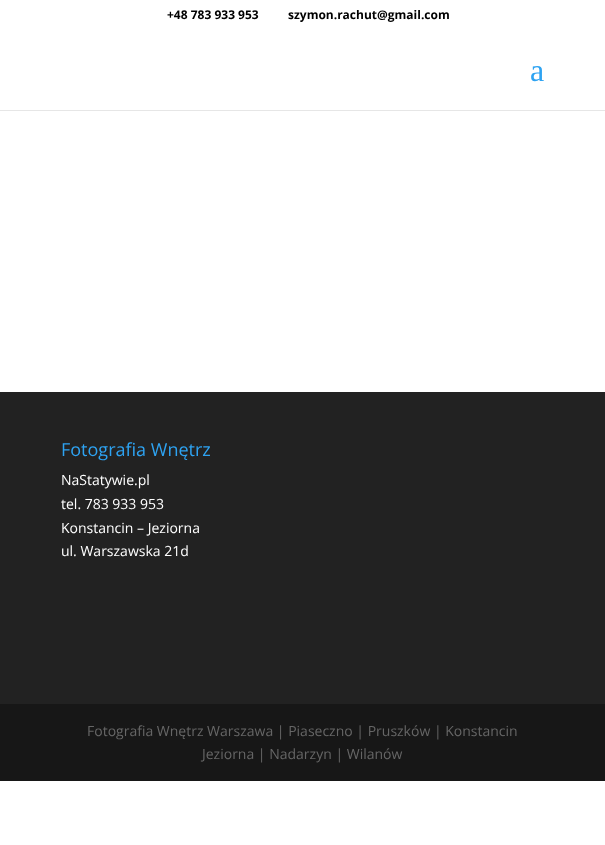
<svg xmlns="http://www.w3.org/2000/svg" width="605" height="845">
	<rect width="100%" height="100%" fill="#FFFFFF" />
	<g font-family="Open Sans" font-size="12" font-weight="700" fill="#000000">
		<text x="167" y="19">+48 783 933 953</text>
		<text x="288" y="19">szymon.rachut@gmail.com</text>
	</g>
	<rect x="0" y="110" width="605" height="1" fill="#E6E6E6" />
	<text x="530" y="81" font-family="Liberation Serif" font-size="32" fill="#2EA3F2">a</text>
	<rect x="0" y="392" width="605" height="312" fill="#222222" />
	<text x="61" y="456" font-family="Open Sans" font-size="18" fill="#2EA3F2">Fotografia Wnętrz</text>
	<g font-family="Open Sans" font-size="14" fill="#FFFFFF">
		<text x="61" y="485">NaStatywie.pl</text>
		<text x="61" y="509">tel. 783 933 953</text>
		<text x="61" y="533">Konstancin – Jeziorna</text>
		<text x="61" y="556">ul. Warszawska 21d</text>
	</g>
	<rect x="0" y="704" width="605" height="77" fill="#171717" />
	<g font-family="Open Sans" font-size="14" fill="#666666">
		<text x="87" y="736">Fotografia Wnętrz Warszawa | Piaseczno | Pruszków | Konstancin</text>
		<text x="202" y="759">Jeziorna | Nadarzyn | Wilanów</text>
	</g>
</svg>
